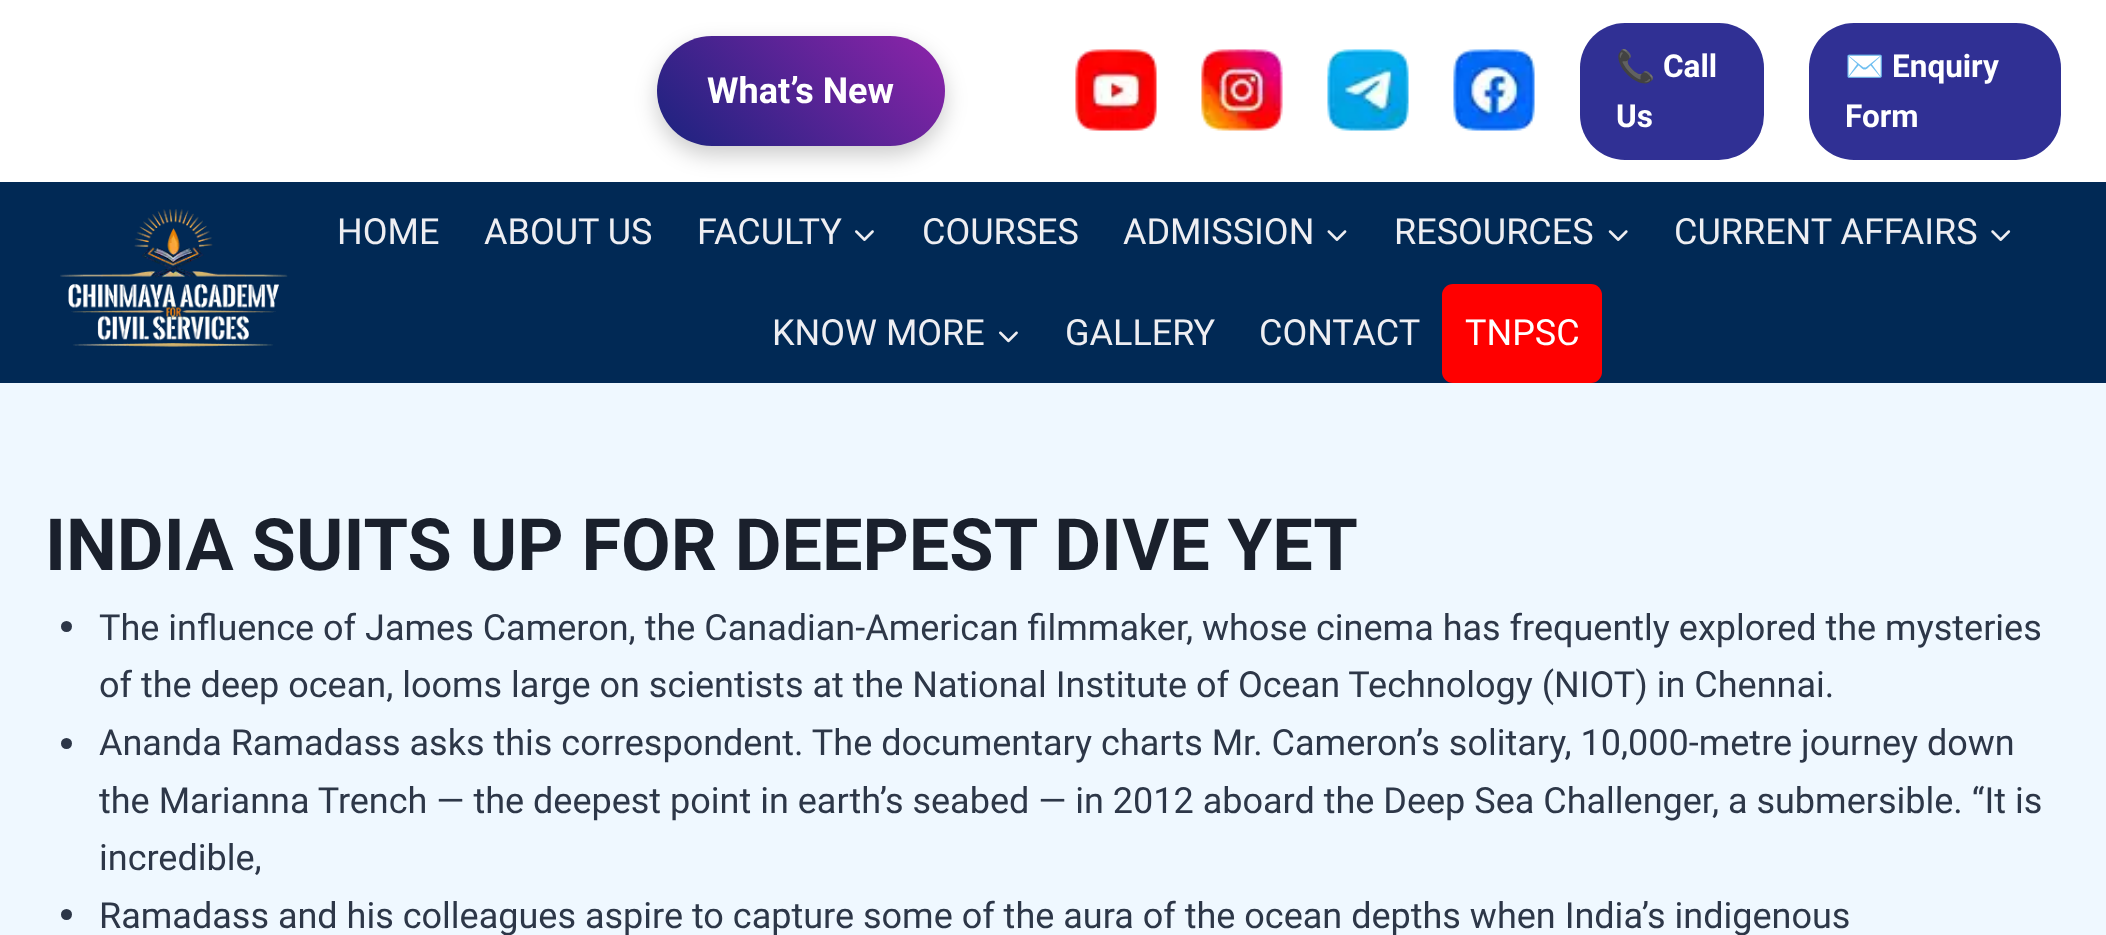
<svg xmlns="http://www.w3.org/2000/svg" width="2106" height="935">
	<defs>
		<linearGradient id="g1" gradientUnits="userSpaceOnUse" x1="701" y1="191" x2="901" y2="-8"><stop offset="0" stop-color="#1A237E" /><stop offset="1" stop-color="#8E24AA" /></linearGradient>
	</defs>
	<rect width="100%" height="100%" fill="#EFF8FF" />
	<rect x="0" y="0" width="2106" height="182" fill="#FFFFFF" />
	<rect x="657" y="45" width="288" height="110" rx="55" fill="#000000" fill-opacity="0.2" filter="blur(11px)" />
	<rect x="657" y="36" width="288" height="110" rx="55" fill="url(#g1)" />
	<text x="707" y="103" font-family="Roboto" font-size="36" font-weight="700" fill="#FFFFFF">What’s New</text>
	<image x="1075" y="49" width="82" height="82" href="assets/img1.png" />
	<image x="1201" y="49" width="82" height="82" href="assets/img2.png" />
	<image x="1327" y="49" width="82" height="82" href="assets/img3.png" />
	<image x="1453" y="49" width="82" height="82" href="assets/img4.png" />
	<rect x="1580" y="23" width="184" height="137" rx="45" fill="#303094" />
	<text x="1616" y="77" font-family="Noto Color Emoji" font-size="31.5" font-weight="700" fill="#FFFFFF">📞</text>
	<g font-family="Roboto" font-size="31.5" font-weight="700" fill="#FFFFFF">
		<text x="1663" y="77">Call</text>
		<text x="1616" y="127">Us</text>
	</g>
	<rect x="1809" y="23" width="252" height="137" rx="45" fill="#303094" />
	<text x="1845" y="77" font-family="Noto Color Emoji" font-size="31.5" font-weight="700" fill="#FFFFFF">✉️</text>
	<g font-family="Roboto" font-size="31.5" font-weight="700" fill="#FFFFFF">
		<text x="1892" y="77">Enquiry</text>
		<text x="1845" y="127">Form</text>
	</g>
	<rect x="0" y="182" width="2106" height="201" fill="#012955" />
	<image x="60" y="209" width="228" height="138" href="assets/img5.png" />
	<g font-family="Roboto" font-size="36" fill="#EEEEF2">
		<text x="337" y="244">HOME</text>
		<text x="484" y="244">ABOUT US</text>
		<text x="697" y="244">FACULTY</text>
	</g>
	<image x="855" y="230" width="19" height="11" href="assets/img6.png" />
	<g font-family="Roboto" font-size="36" fill="#EEEEF2">
		<text x="922" y="244">COURSES</text>
		<text x="1123" y="244">ADMISSION</text>
	</g>
	<image x="1327" y="230" width="20" height="11" href="assets/img7.png" />
	<text x="1394" y="244" font-family="Roboto" font-size="36" fill="#EEEEF2">RESOURCES</text>
	<image x="1608" y="230" width="20" height="11" href="assets/img8.png" />
	<text x="1674" y="244" font-family="Roboto" font-size="36" fill="#EEEEF2">CURRENT AFFAIRS</text>
	<image x="1991" y="230" width="20" height="11" href="assets/img9.png" />
	<text x="772" y="345" font-family="Roboto" font-size="36" fill="#EEEEF2">KNOW MORE</text>
	<image x="999" y="331" width="19" height="12" href="assets/img10.png" />
	<g font-family="Roboto" font-size="36" fill="#EEEEF2">
		<text x="1065" y="345">GALLERY</text>
		<text x="1259" y="345">CONTACT</text>
	</g>
	<rect x="1442" y="284" width="160" height="99" rx="11" fill="#FF0000" />
	<text x="1465" y="345" font-family="Roboto" font-size="36" fill="#FFFFFF">TNPSC</text>
	<text x="45" y="570" font-family="Roboto" font-size="72" font-weight="700" fill="#1A202C">INDIA SUITS UP FOR DEEPEST DIVE YET</text>
	<circle cx="66.5" cy="626.5" r="5.5" fill="#2D3748" />
	<g font-family="Roboto" font-size="36" fill="#2D3748">
		<text x="99" y="640">The influence of James Cameron, the Canadian-American filmmaker, whose cinema has frequently explored the mysteries</text>
		<text x="99" y="697">of the deep ocean, looms large on scientists at the National Institute of Ocean Technology (NIOT) in Chennai.</text>
	</g>
	<circle cx="66.5" cy="743.5" r="5.5" fill="#2D3748" />
	<g font-family="Roboto" font-size="36" fill="#2D3748">
		<text x="99" y="755">Ananda Ramadass asks this correspondent. The documentary charts Mr. Cameron’s solitary, 10,000-metre journey down</text>
		<text x="99" y="813">the Marianna Trench — the deepest point in earth’s seabed — in 2012 aboard the Deep Sea Challenger, a submersible. “It is</text>
		<text x="99" y="870">incredible,</text>
	</g>
	<circle cx="66.5" cy="914.5" r="5.5" fill="#2D3748" />
	<text x="99" y="928" font-family="Roboto" font-size="36" fill="#2D3748">Ramadass and his colleagues aspire to capture some of the aura of the ocean depths when India’s indigenous</text>
</svg>
